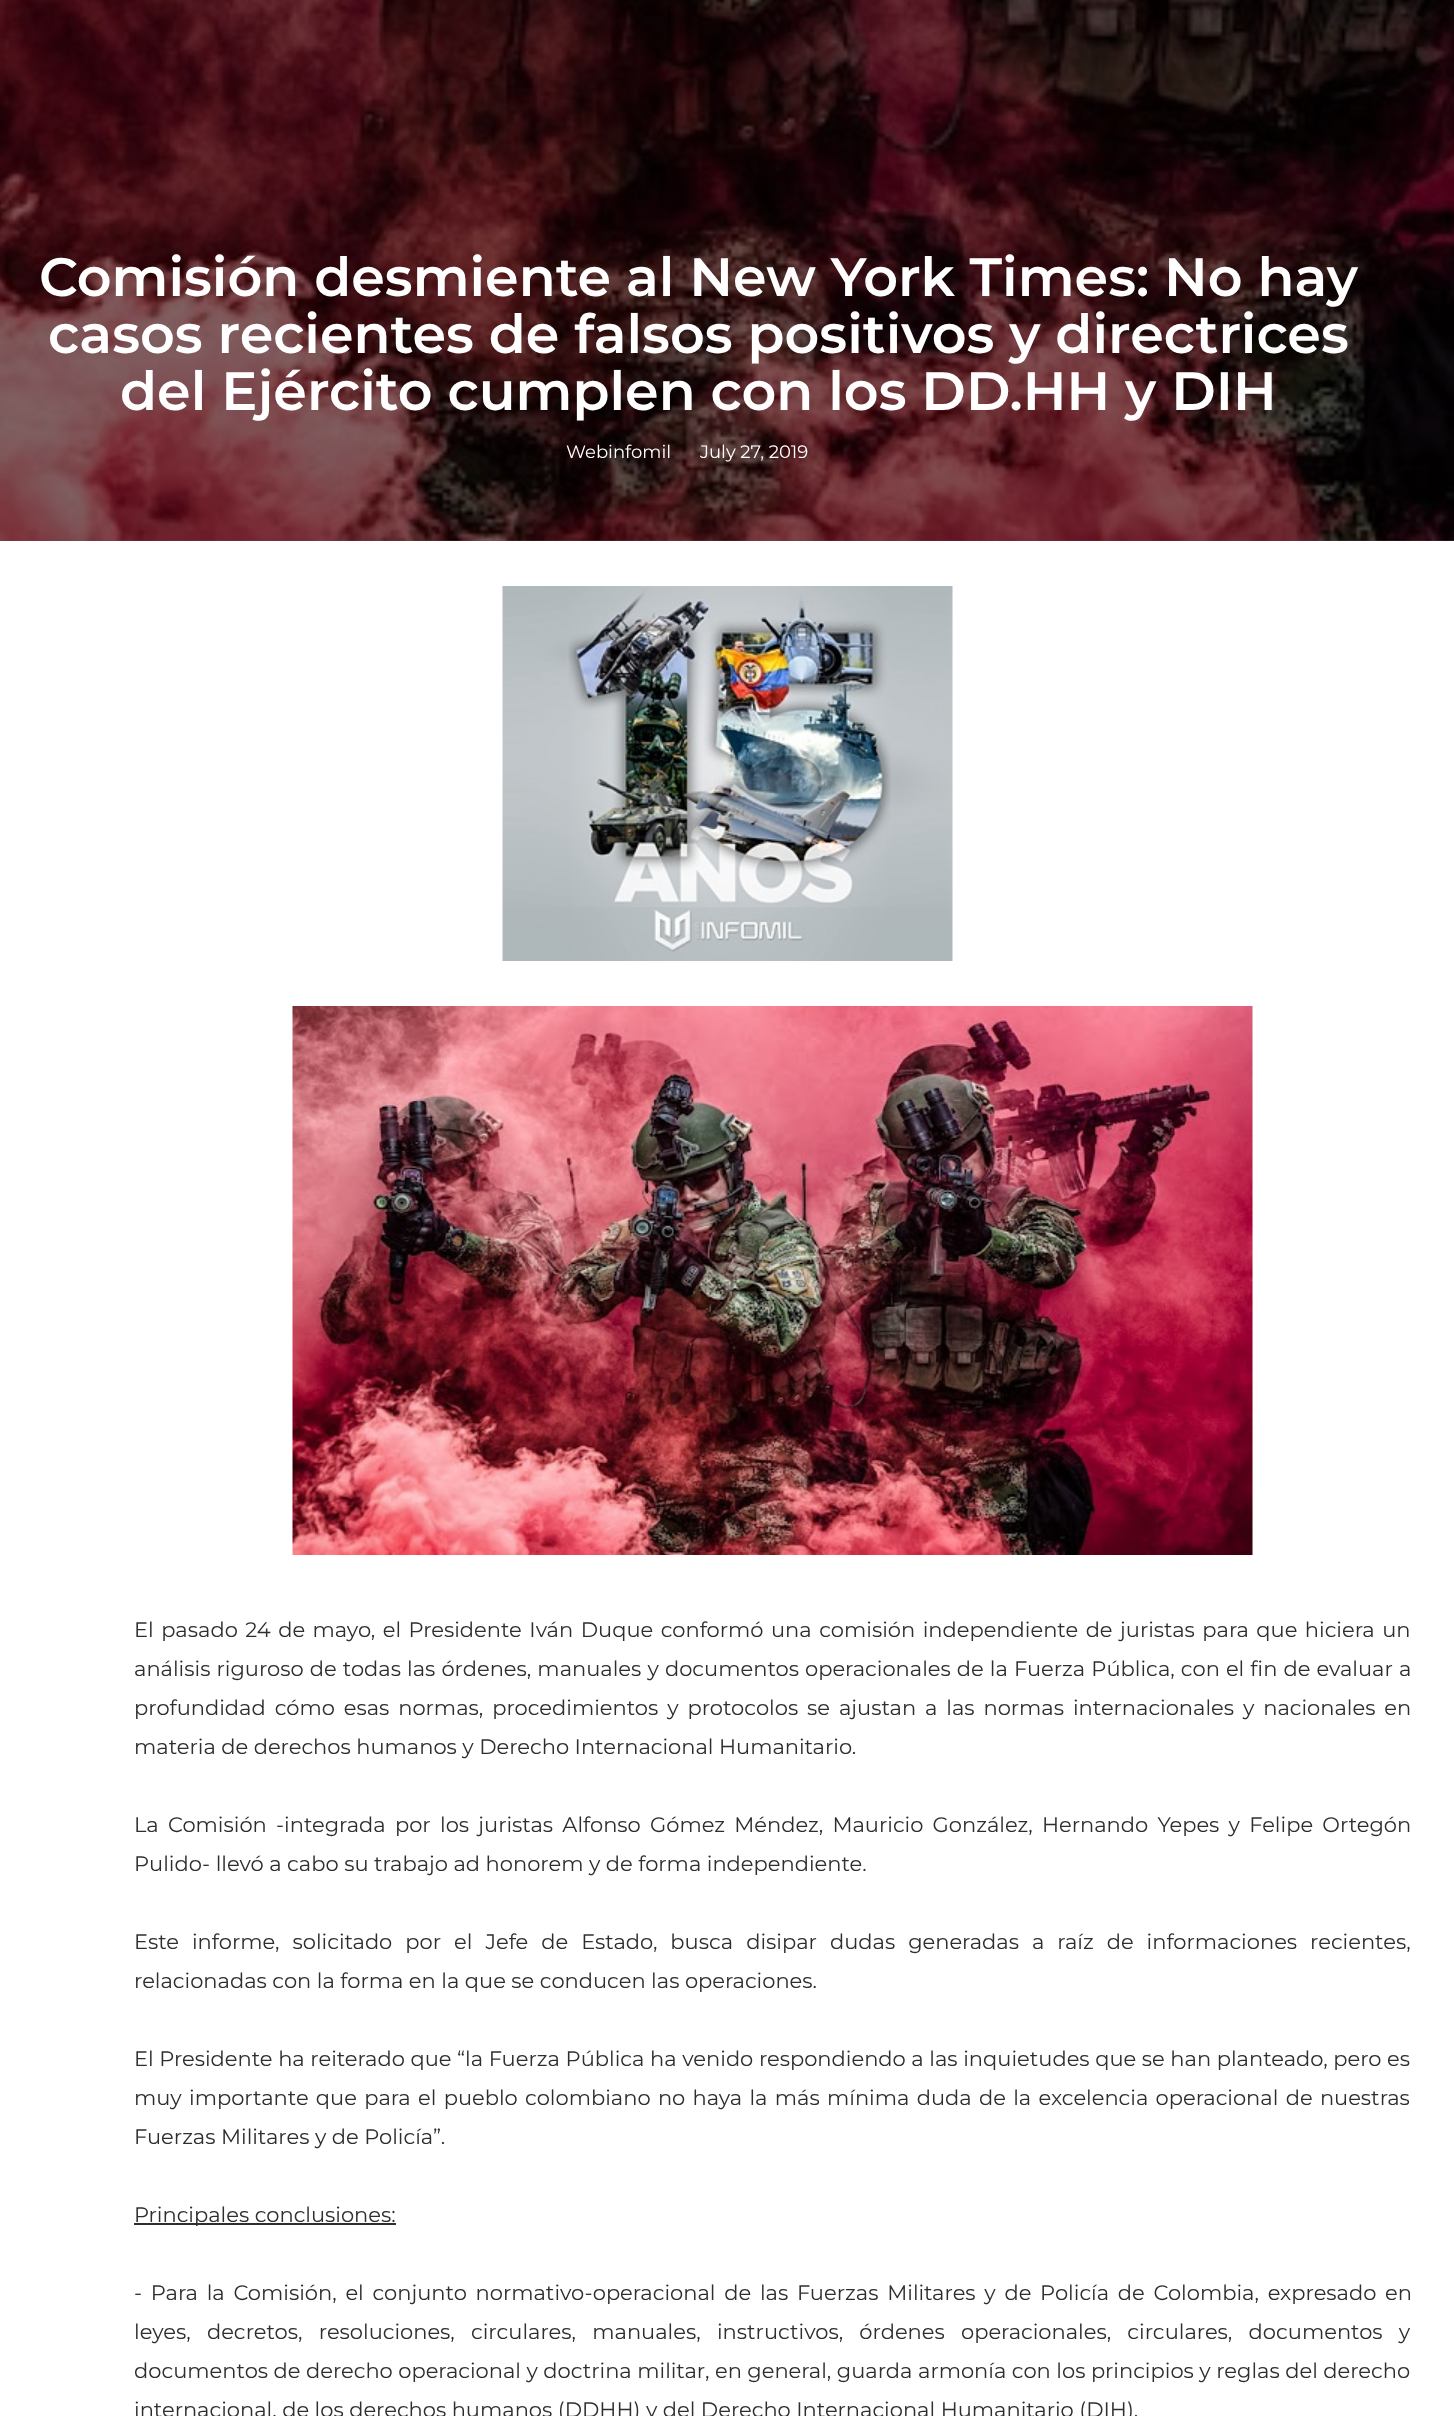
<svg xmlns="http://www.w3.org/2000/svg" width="1454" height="2416">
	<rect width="100%" height="100%" fill="#FFFFFF" />
	<image x="0" y="0" width="1454" height="541" href="assets/img1.png" />
	<g font-family="Montserrat" font-size="54" font-weight="600" fill="#FFFFFF">
		<text x="39" y="296">Comisión desmiente al New York Times: No hay</text>
		<text x="48" y="353">casos recientes de falsos positivos y directrices</text>
		<text x="120" y="410">del Ejército cumplen con los DD.HH y DIH</text>
	</g>
	<g font-family="Montserrat" font-size="18" fill="#FFFFFF">
		<text x="566" y="458">Webinfomil</text>
		<text x="700" y="458">July 27, 2019</text>
	</g>
	<image x="502" y="586" width="451" height="375" href="assets/img2.png" />
	<image x="292" y="1006" width="961" height="549" href="assets/img3.png" />
	<g font-family="Montserrat" font-size="21" fill="#2E2E2E">
		<text x="134" y="1637" word-spacing="2">El pasado 24 de mayo, el Presidente Iván Duque conformó una comisión independiente de juristas para que hiciera un</text>
		<text x="134" y="1676" word-spacing="0.6">análisis riguroso de todas las órdenes, manuales y documentos operacionales de la Fuerza Pública, con el fin de evaluar a</text>
		<text x="134" y="1715" word-spacing="3.4">profundidad cómo esas normas, procedimientos y protocolos se ajustan a las normas internacionales y nacionales en</text>
		<text x="134" y="1754">materia de derechos humanos y Derecho Internacional Humanitario.</text>
		<text x="134" y="1832" word-spacing="3.75">La Comisión -integrada por los juristas Alfonso Gómez Méndez, Mauricio González, Hernando Yepes y Felipe Ortegón</text>
		<text x="134" y="1871">Pulido- llevó a cabo su trabajo ad honorem y de forma independiente.</text>
		<text x="134" y="1949" word-spacing="7.5">Este informe, solicitado por el Jefe de Estado, busca disipar dudas generadas a raíz de informaciones recientes,</text>
		<text x="134" y="1988">relacionadas con la forma en la que se conducen las operaciones.</text>
		<text x="134" y="2066" word-spacing="0.1">El Presidente ha reiterado que “la Fuerza Pública ha venido respondiendo a las inquietudes que se han planteado, pero es</text>
		<text x="134" y="2105" word-spacing="1.8">muy importante que para el pueblo colombiano no haya la más mínima duda de la excelencia operacional de nuestras</text>
		<text x="134" y="2144">Fuerzas Militares y de Policía”.</text>
	</g>
	<rect x="134" y="2223" width="262" height="2" fill="#2E2E2E" />
	<g font-family="Montserrat" font-size="21" fill="#2E2E2E">
		<text x="134" y="2222">Principales conclusiones:</text>
		<text x="134" y="2300" word-spacing="3.25">- Para la Comisión, el conjunto normativo-operacional de las Fuerzas Militares y de Policía de Colombia, expresado en</text>
		<text x="134" y="2339" word-spacing="10.75">leyes, decretos, resoluciones, circulares, manuales, instructivos, órdenes operacionales, circulares, documentos y</text>
		<text x="134" y="2378">documentos de derecho operacional y doctrina militar, en general, guarda armonía con los principios y reglas del derecho</text>
		<text x="134" y="2417">internacional, de los derechos humanos (DDHH) y del Derecho Internacional Humanitario (DIH).</text>
	</g>
</svg>
